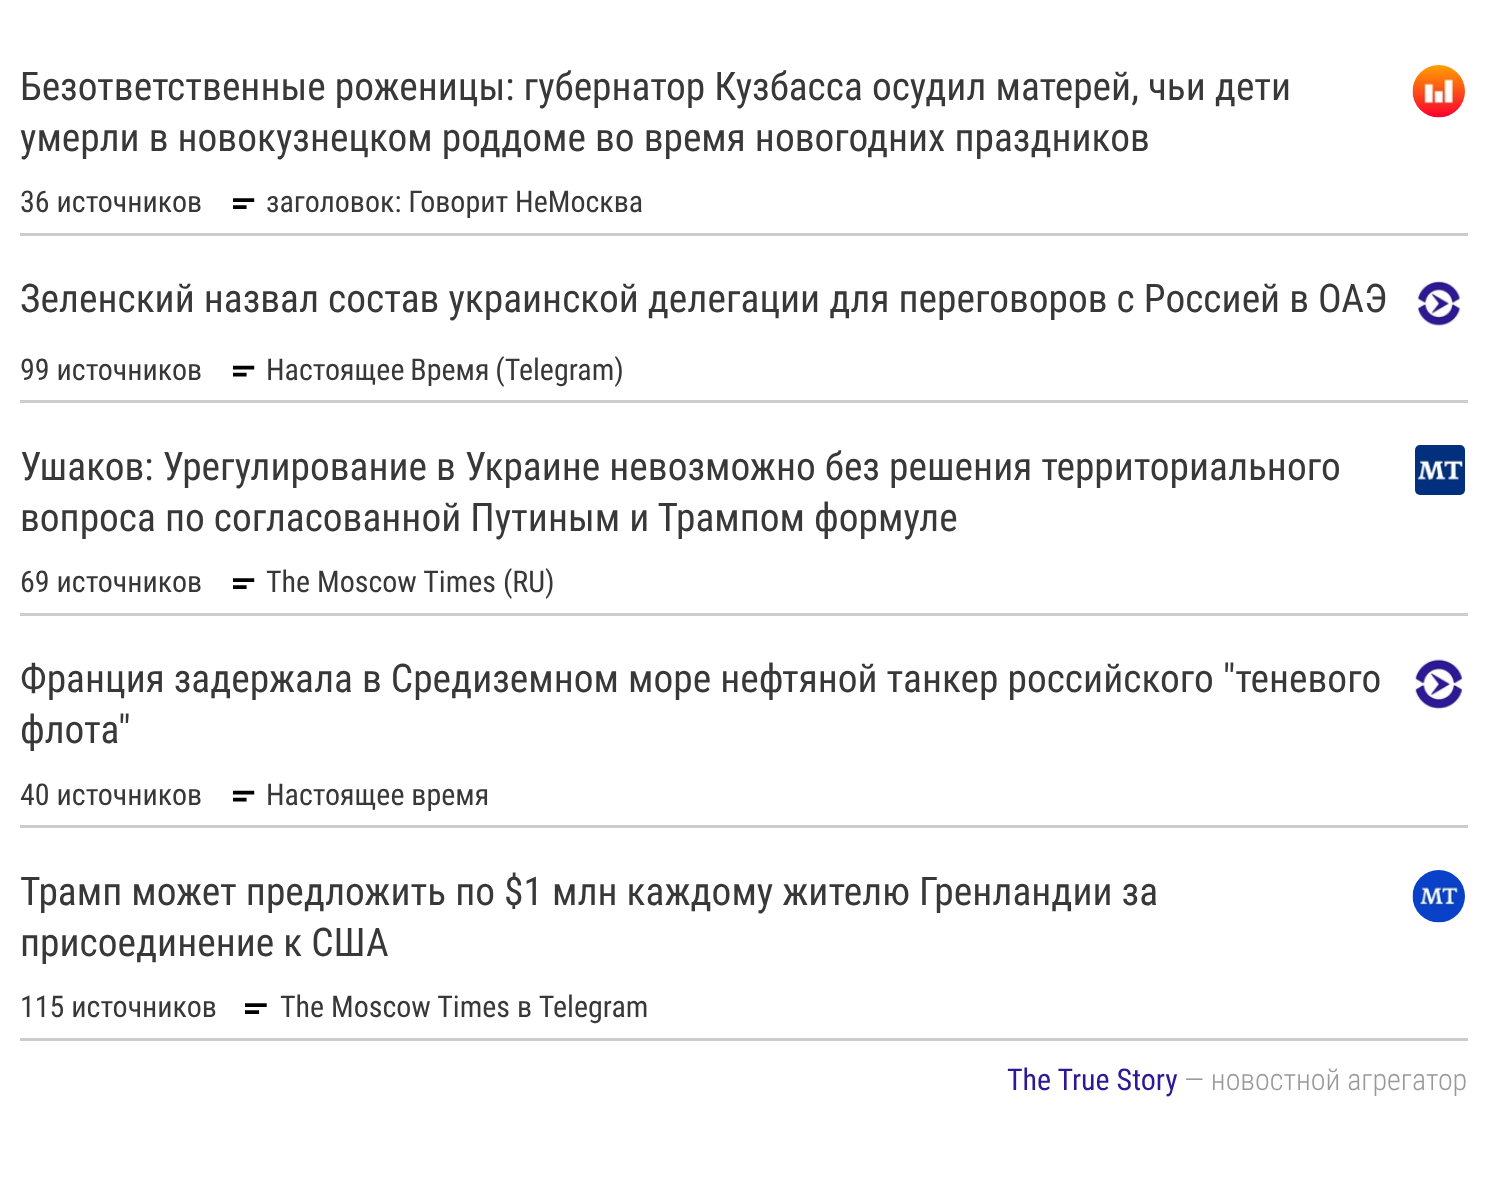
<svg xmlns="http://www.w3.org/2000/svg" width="1486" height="1182">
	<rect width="100%" height="100%" fill="#FFFFFF" />
	<rect x="20" y="1038" width="1448" height="3" fill="#CCCCCC" />
	<g font-family="Roboto Condensed" font-size="39.4" fill="#383838">
		<text x="20" y="100">Безответственные роженицы: губернатор Кузбасса осудил матерей, чьи дети</text>
		<text x="20" y="151">умерли в новокузнецком роддоме во время новогодних праздников</text>
	</g>
	<image x="1412" y="65" width="53" height="53" href="assets/img1.png" />
	<text x="20" y="212" font-family="Roboto Condensed" font-size="30" fill="#383838">36 источников</text>
	<image x="233" y="198" width="22" height="11" href="assets/img2.png" />
	<text x="266" y="212" font-family="Roboto Condensed" font-size="30" fill="#383838">заголовок: Говорит НеМосква</text>
	<rect x="20" y="233" width="1448" height="3" fill="#CCCCCC" />
	<text x="20" y="312" font-family="Roboto Condensed" font-size="39.4" fill="#383838">Зеленский назвал состав украинской делегации для переговоров с Россией в ОАЭ</text>
	<image x="1417" y="281" width="44" height="49" href="assets/img3.png" />
	<text x="20" y="380" font-family="Roboto Condensed" font-size="30" fill="#383838">99 источников</text>
	<image x="233" y="365" width="22" height="12" href="assets/img4.png" />
	<text x="266" y="380" word-spacing="-1" font-family="Roboto Condensed" font-size="30" fill="#383838">Настоящее Время (Telegram)</text>
	<rect x="20" y="400" width="1448" height="3" fill="#CCCCCC" />
	<g font-family="Roboto Condensed" font-size="39.4" fill="#383838">
		<text x="20" y="480">Ушаков: Урегулирование в Украине невозможно без решения территориального</text>
		<text x="20" y="531">вопроса по согласованной Путиным и Трампом формуле</text>
	</g>
	<image x="1415" y="445" width="50" height="50" href="assets/img5.png" />
	<text x="20" y="592" font-family="Roboto Condensed" font-size="30" fill="#383838">69 источников</text>
	<image x="233" y="578" width="22" height="11" href="assets/img2.png" />
	<text x="266" y="592" font-family="Roboto Condensed" font-size="30" fill="#383838">The Moscow Times (RU)</text>
	<rect x="20" y="613" width="1448" height="3" fill="#CCCCCC" />
	<g font-family="Roboto Condensed" font-size="39.4" fill="#383838">
		<text x="20" y="692">Франция задержала в Средиземном море нефтяной танкер российского "теневого</text>
		<text x="20" y="743">флота"</text>
	</g>
	<image x="1414" y="659" width="49" height="50" href="assets/img6.png" />
	<text x="20" y="805" font-family="Roboto Condensed" font-size="30" fill="#383838">40 источников</text>
	<image x="233" y="790" width="22" height="12" href="assets/img4.png" />
	<text x="266" y="805" font-family="Roboto Condensed" font-size="30" fill="#383838">Настоящее время</text>
	<rect x="20" y="825" width="1448" height="3" fill="#CCCCCC" />
	<g font-family="Roboto Condensed" font-size="39.4" fill="#383838">
		<text x="20" y="905">Трамп может предложить по $1 млн каждому жителю Гренландии за</text>
		<text x="20" y="956">присоединение к США</text>
	</g>
	<image x="1412" y="870" width="53" height="53" href="assets/img7.png" />
	<text x="20" y="1017" font-family="Roboto Condensed" font-size="30" fill="#383838">115 источников</text>
	<image x="245" y="1003" width="22" height="11" href="assets/img8.png" />
	<text x="280" y="1017" font-family="Roboto Condensed" font-size="30" fill="#383838">The Moscow Times в Telegram</text>
	<text x="1007" y="1090" font-family="Roboto Condensed" font-size="30" fill="#2D1996">The True Story</text>
	<text x="1184" y="1090" font-family="Roboto Condensed" font-size="30" font-weight="300" fill="#999999">— новостной агрегатор</text>
</svg>
